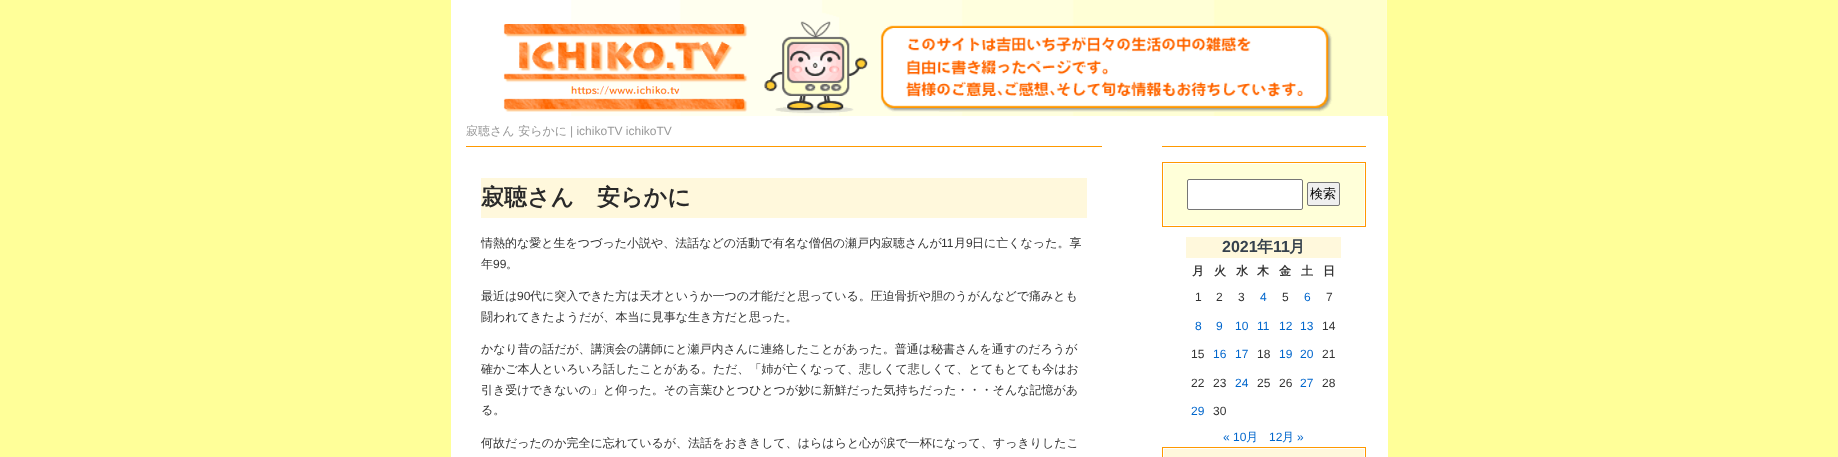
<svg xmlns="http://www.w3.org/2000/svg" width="1838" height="457">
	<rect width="100%" height="100%" fill="#FFFF99" />
	<image x="451" y="0" width="936" height="116" href="assets/img1.png" />
	<rect x="451" y="116" width="937" height="341" fill="#FFFFFF" />
	<text x="466" y="135" font-family="WenQuanYi Zen Hei" font-size="12" font-weight="500" fill="#999999">寂聴さん 安らかに</text>
	<text x="570" y="135" font-family="Liberation Sans" font-size="12" fill="#999999">| ichikoTV ichikoTV</text>
	<rect x="466" y="146" width="636" height="1" fill="#FF9900" />
	<rect x="481" y="178" width="606" height="40" fill="#FFF8DC" />
	<text x="481" y="205" font-family="WenQuanYi Zen Hei" font-size="23" font-weight="700" fill="#292929">寂聴さん　安らかに</text>
	<text x="481" y="247" font-family="WenQuanYi Zen Hei" font-size="12" font-weight="500" fill="#333333">情熱的な愛と生をつづった小説や、法話などの活動で有名な僧侶の瀬戸内寂聴さんが</text>
	<text x="941" y="247" font-family="Liberation Sans" font-size="12" fill="#333333">11</text>
	<text x="954" y="247" font-family="WenQuanYi Zen Hei" font-size="12" font-weight="500" fill="#333333">月</text>
	<text x="966" y="247" font-family="Liberation Sans" font-size="12" fill="#333333">9</text>
	<g font-family="WenQuanYi Zen Hei" font-size="12" font-weight="500" fill="#333333">
		<text x="972" y="247">日に亡くなった。享</text>
		<text x="481" y="268">年</text>
	</g>
	<text x="493" y="268" font-family="Liberation Sans" font-size="12" fill="#333333">99</text>
	<g font-family="WenQuanYi Zen Hei" font-size="12" font-weight="500" fill="#333333">
		<text x="506" y="268">。</text>
		<text x="481" y="300">最近は</text>
	</g>
	<text x="517" y="300" font-family="Liberation Sans" font-size="12" fill="#333333">90</text>
	<g font-family="WenQuanYi Zen Hei" font-size="12" font-weight="500" fill="#333333">
		<text x="530" y="300">代に突入できた方は天才というか一つの才能だと思っている。圧迫骨折や胆のうがんなどで痛みとも</text>
		<text x="481" y="321">闘われてきたようだが、本当に見事な生き方だと思った。</text>
		<text x="481" y="353">かなり昔の話だが、講演会の講師にと瀬戸内さんに連絡したことがあった。普通は秘書さんを通すのだろうが</text>
		<text x="481" y="373">確かご本人といろいろ話したことがある。ただ、「姉が亡くなって、悲しくて悲しくて、とてもとても今はお</text>
		<text x="481" y="394">引き受けできないの」と仰った。その言葉ひとつひとつが妙に新鮮だった気持ちだった・・・そんな記憶があ</text>
		<text x="481" y="414">る。</text>
		<text x="481" y="447">何故だったのか完全に忘れているが、法話をおききして、はらはらと心が涙で一杯になって、すっきりしたこ</text>
	</g>
	<rect x="1162" y="146" width="204" height="1" fill="#FF9900" />
	<rect x="1162.5" y="162.5" width="203" height="64" fill="none" stroke="#FF9900" />
	<rect x="1164" y="164" width="200" height="61" fill="#FFFFD9" />
	<rect x="1187.5" y="179.5" width="115" height="30" rx="1.5" fill="#FFFFFF" stroke="#767676" />
	<rect x="1307.5" y="182.5" width="32" height="23" rx="1.5" fill="#EFEFEF" stroke="#767676" />
	<text x="1310" y="198" font-family="WenQuanYi Zen Hei" font-size="13" font-weight="500" fill="#000000">検索</text>
	<rect x="1186" y="237" width="155" height="21" fill="#FFF8DC" />
	<text x="1222" y="252" font-family="Liberation Sans" font-size="16" font-weight="700" fill="#36414D">2021</text>
	<text x="1257" y="252" font-family="WenQuanYi Zen Hei" font-size="16" font-weight="700" fill="#36414D">年</text>
	<text x="1273" y="252" font-family="Liberation Sans" font-size="16" font-weight="700" fill="#36414D">11</text>
	<text x="1289" y="252" font-family="WenQuanYi Zen Hei" font-size="16" font-weight="700" fill="#36414D">月</text>
	<g font-family="WenQuanYi Zen Hei" font-size="12" font-weight="700" fill="#333333">
		<text x="1192" y="275">月</text>
		<text x="1214" y="275">火</text>
		<text x="1236" y="275">水</text>
		<text x="1257" y="275">木</text>
		<text x="1279" y="275">金</text>
		<text x="1301" y="275">土</text>
		<text x="1323" y="275">日</text>
	</g>
	<g font-family="Liberation Sans" font-size="12" fill="#333333">
		<text x="1195" y="301">1</text>
		<text x="1216" y="301">2</text>
		<text x="1238" y="301">3</text>
	</g>
	<text x="1260" y="301" font-family="Liberation Sans" font-size="12" fill="#0066CC">4</text>
	<text x="1282" y="301" font-family="Liberation Sans" font-size="12" fill="#333333">5</text>
	<text x="1304" y="301" font-family="Liberation Sans" font-size="12" fill="#0066CC">6</text>
	<text x="1326" y="301" font-family="Liberation Sans" font-size="12" fill="#333333">7</text>
	<g font-family="Liberation Sans" font-size="12" fill="#0066CC">
		<text x="1195" y="330">8</text>
		<text x="1216" y="330">9</text>
		<text x="1235" y="330">10</text>
		<text x="1257" y="330">11</text>
		<text x="1279" y="330">12</text>
		<text x="1300" y="330">13</text>
	</g>
	<g font-family="Liberation Sans" font-size="12" fill="#333333">
		<text x="1322" y="330">14</text>
		<text x="1191" y="358">15</text>
	</g>
	<g font-family="Liberation Sans" font-size="12" fill="#0066CC">
		<text x="1213" y="358">16</text>
		<text x="1235" y="358">17</text>
	</g>
	<text x="1257" y="358" font-family="Liberation Sans" font-size="12" fill="#333333">18</text>
	<g font-family="Liberation Sans" font-size="12" fill="#0066CC">
		<text x="1279" y="358">19</text>
		<text x="1300" y="358">20</text>
	</g>
	<g font-family="Liberation Sans" font-size="12" fill="#333333">
		<text x="1322" y="358">21</text>
		<text x="1191" y="387">22</text>
		<text x="1213" y="387">23</text>
	</g>
	<text x="1235" y="387" font-family="Liberation Sans" font-size="12" fill="#0066CC">24</text>
	<g font-family="Liberation Sans" font-size="12" fill="#333333">
		<text x="1257" y="387">25</text>
		<text x="1279" y="387">26</text>
	</g>
	<text x="1300" y="387" font-family="Liberation Sans" font-size="12" fill="#0066CC">27</text>
	<text x="1322" y="387" font-family="Liberation Sans" font-size="12" fill="#333333">28</text>
	<text x="1191" y="415" font-family="Liberation Sans" font-size="12" fill="#0066CC">29</text>
	<text x="1213" y="415" font-family="Liberation Sans" font-size="12" fill="#333333">30</text>
	<text x="1223" y="441" font-family="Liberation Sans" font-size="12" fill="#0066CC">« 10</text>
	<text x="1246" y="441" font-family="WenQuanYi Zen Hei" font-size="12" font-weight="500" fill="#0066CC">月</text>
	<text x="1269" y="441" font-family="Liberation Sans" font-size="12" fill="#0066CC">12</text>
	<text x="1282" y="441" font-family="WenQuanYi Zen Hei" font-size="12" font-weight="500" fill="#0066CC">月</text>
	<text x="1297" y="441" font-family="Liberation Sans" font-size="12" fill="#0066CC">»</text>
	<rect x="1162.5" y="447.5" width="203" height="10" fill="none" stroke="#FF9900" />
	<rect x="1164" y="449" width="200" height="8" fill="#FFF8DC" />
</svg>
